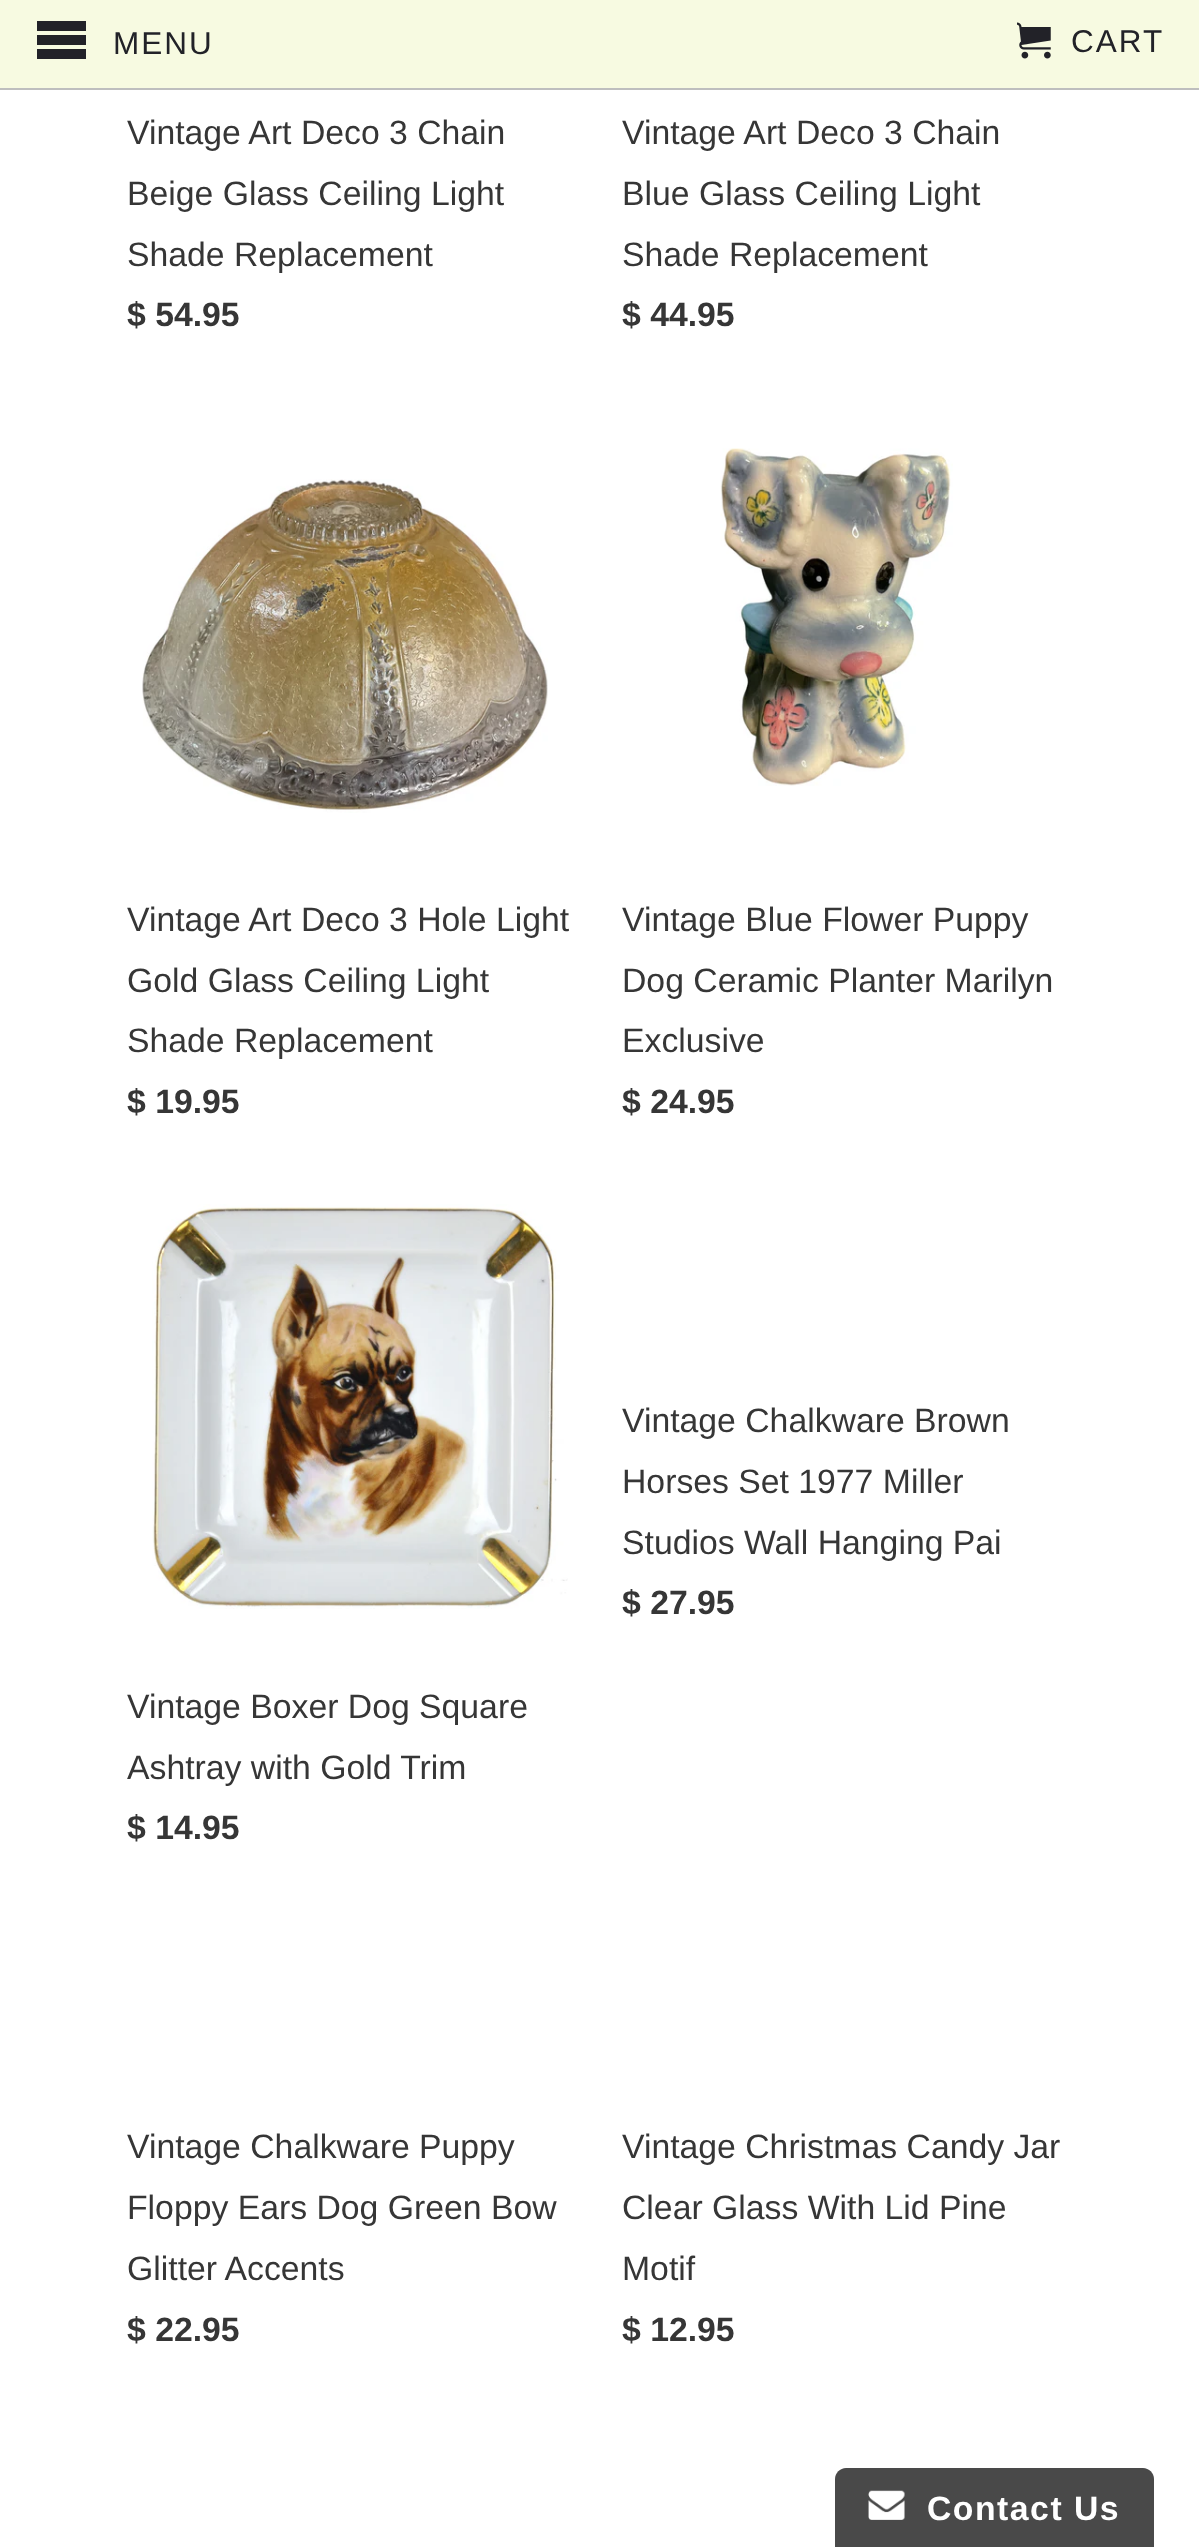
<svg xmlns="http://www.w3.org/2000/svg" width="1199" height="2547">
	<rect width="100%" height="100%" fill="#FFFFFF" />
	<rect x="0" y="0" width="1199" height="88" fill="#F7FAE1" />
	<rect x="0" y="88" width="1199" height="2" fill="#BEBEBE" />
	<path d="M37 21V31H86V21ZM37 35V45H86V35ZM37 49V59H86V49Z" fill="#222228" />
	<text x="113" y="54" font-family="Liberation Sans" font-size="31.5" letter-spacing="2" fill="#222228">MENU</text>
	<image x="1017" y="22" width="34" height="37" href="assets/img1.png" />
	<text x="1071" y="52" font-family="Liberation Sans" font-size="31.5" letter-spacing="2" fill="#222228">CART</text>
	<g font-family="Liberation Sans" font-size="33.75" fill="#363636">
		<text x="127" y="144">Vintage Art Deco 3 Chain</text>
		<text x="127" y="205">Beige Glass Ceiling Light</text>
		<text x="127" y="266">Shade Replacement</text>
	</g>
	<text x="127" y="326" font-family="Liberation Sans" font-size="33.75" font-weight="700" fill="#363636">$ 54.95</text>
	<g font-family="Liberation Sans" font-size="33.75" fill="#363636">
		<text x="622" y="144">Vintage Art Deco 3 Chain</text>
		<text x="622" y="205">Blue Glass Ceiling Light</text>
		<text x="622" y="266">Shade Replacement</text>
	</g>
	<text x="622" y="326" font-family="Liberation Sans" font-size="33.75" font-weight="700" fill="#363636">$ 44.95</text>
	<image x="142" y="479" width="406" height="334" href="assets/img2.png" />
	<g font-family="Liberation Sans" font-size="33.75" fill="#363636">
		<text x="127" y="931">Vintage Art Deco 3 Hole Light</text>
		<text x="127" y="992">Gold Glass Ceiling Light</text>
		<text x="127" y="1052">Shade Replacement</text>
	</g>
	<text x="127" y="1113" font-family="Liberation Sans" font-size="33.75" font-weight="700" fill="#363636">$ 19.95</text>
	<image x="720" y="448" width="233" height="338" href="assets/img3.png" />
	<g font-family="Liberation Sans" font-size="33.75" fill="#363636">
		<text x="622" y="931">Vintage Blue Flower Puppy</text>
		<text x="622" y="992">Dog Ceramic Planter Marilyn</text>
		<text x="622" y="1052">Exclusive</text>
	</g>
	<text x="622" y="1113" font-family="Liberation Sans" font-size="33.75" font-weight="700" fill="#363636">$ 24.95</text>
	<g font-family="Liberation Sans" font-size="33.75" fill="#363636">
		<text x="622" y="1432">Vintage Chalkware Brown</text>
		<text x="622" y="1493">Horses Set 1977 Miller</text>
		<text x="622" y="1554">Studios Wall Hanging Pai</text>
	</g>
	<text x="622" y="1614" font-family="Liberation Sans" font-size="33.75" font-weight="700" fill="#363636">$ 27.95</text>
	<image x="152" y="1204" width="416" height="405" href="assets/img4.png" />
	<g font-family="Liberation Sans" font-size="33.75" fill="#363636">
		<text x="127" y="1718">Vintage Boxer Dog Square</text>
		<text x="127" y="1779">Ashtray with Gold Trim</text>
	</g>
	<text x="127" y="1839" font-family="Liberation Sans" font-size="33.75" font-weight="700" fill="#363636">$ 14.95</text>
	<g font-family="Liberation Sans" font-size="33.75" fill="#363636">
		<text x="127" y="2158">Vintage Chalkware Puppy</text>
		<text x="127" y="2219">Floppy Ears Dog Green Bow</text>
		<text x="127" y="2280">Glitter Accents</text>
	</g>
	<text x="127" y="2341" font-family="Liberation Sans" font-size="33.75" font-weight="700" fill="#363636">$ 22.95</text>
	<g font-family="Liberation Sans" font-size="33.75" fill="#363636">
		<text x="622" y="2158">Vintage Christmas Candy Jar</text>
		<text x="622" y="2219">Clear Glass With Lid Pine</text>
		<text x="622" y="2280">Motif</text>
	</g>
	<text x="622" y="2341" font-family="Liberation Sans" font-size="33.75" font-weight="700" fill="#363636">$ 12.95</text>
	<path d="M846 2468H1143C1149 2468 1154 2473 1154 2479V2547H835V2479C835 2473 840 2468 846 2468Z" fill="#494949" />
	<image x="868" y="2490" width="37" height="30" href="assets/img5.png" />
	<text x="927" y="2520" font-family="Liberation Sans" font-size="33.75" font-weight="700" letter-spacing="1.5" fill="#FFFFFF">Contact Us</text>
</svg>
